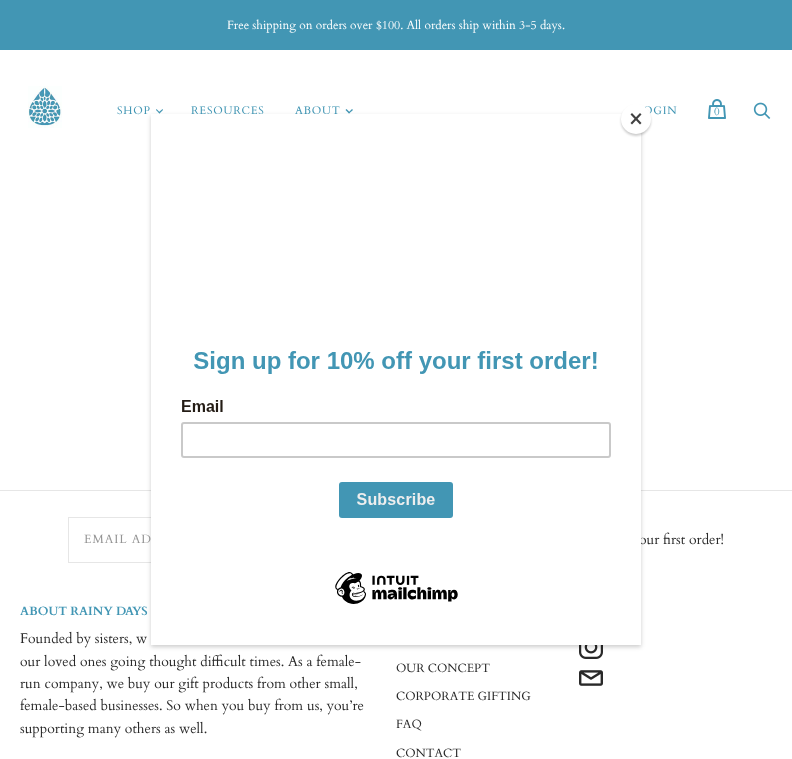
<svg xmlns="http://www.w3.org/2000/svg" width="792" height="759">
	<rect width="100%" height="100%" fill="#FFFFFF" />
	<rect x="0" y="0" width="792" height="50" fill="#4296B4" />
	<text x="227" y="29" font-family="Cardo" font-size="12" fill="#FFFFFF">Free shipping on orders over $100. All orders ship within 3-5 days.</text>
	<path d="M158.5 112.5L162.5 109L163 110L159.5 113.5Z" fill="#4296B4" />
	<path d="M156 110L156.5 109L160 112.5L159.5 113.5Z" fill="#4296B4" />
	<path d="M348.5 112.5L352 109L353 110L349 113.5Z" fill="#4296B4" />
	<path d="M345.5 110L346.5 109L350 112.5L349 113.5Z" fill="#4296B4" />
	<rect x="0" y="490" width="792" height="1" fill="#E6E6E6" />
	<rect x="68" y="517" width="83" height="1" fill="#E6E6E6" />
	<rect x="68" y="562" width="83" height="1" fill="#E6E6E6" />
	<image x="579" y="645" width="24" height="14" href="assets/img5.png" />
	<rect x="151" y="116" width="490" height="531" fill="#000000" fill-opacity="0.2" filter="blur(2px)" />
	<g font-family="Cardo" font-size="11" letter-spacing="0.75" fill="#4296B4">
		<text x="191" y="114">RESOURCES</text>
		<text x="295" y="114">ABOUT</text>
	</g>
	<text x="639" y="544" font-family="Cardo" font-size="14" fill="#292929">our first order!</text>
	<image x="151" y="114" width="490" height="531" href="assets/img1.png" />
	<rect x="621" y="106" width="30" height="30" rx="15" fill="#000000" fill-opacity="0.2" filter="blur(1px)" />
	<text x="643" y="114" font-family="Cardo" font-size="11" letter-spacing="0.75" fill="#4296B4">OGIN</text>
	<circle cx="636" cy="119" r="15" fill="#FFFFFF" />
	<path d="M640 113L641.5 114.5L632 124.5L630.5 123Z" fill="#414141" />
	<path d="M630.5 114.5L632 113L641.5 123L640 124.5Z" fill="#414141" />
	<image x="28" y="86" width="34" height="42" href="assets/img2.png" />
	<text x="117" y="114" font-family="Cardo" font-size="11" letter-spacing="0.75" fill="#4296B4">SHOP</text>
	<image x="708" y="99" width="18" height="20" href="assets/img3.png" />
	<text x="714" y="115" font-family="Cardo" font-size="11" fill="#4296B4">0</text>
	<image x="753" y="102" width="18" height="17" href="assets/img4.png" />
	<rect x="68" y="517" width="1" height="46" fill="#E6E6E6" />
	<text x="84" y="543" font-family="Cardo" font-size="12" letter-spacing="1" fill="#949494">EMAIL AD</text>
	<text x="20" y="615" font-family="Cardo" font-size="12" font-weight="700" fill="#4296B4">ABOUT RAINY DAYS</text>
	<g font-family="Cardo" font-size="14" fill="#292929">
		<text x="20" y="643">Founded by sisters, w</text>
		<text x="20" y="666">our loved ones going thought difficult times. As a female-</text>
		<text x="20" y="688">run company, we buy our gift products from other small,</text>
		<text x="20" y="710">female-based businesses. So when you buy from us, you’re</text>
		<text x="20" y="733">supporting many others as well.</text>
	</g>
	<g font-family="Cardo" font-size="12" fill="#292929">
		<text x="396" y="672">OUR CONCEPT</text>
		<text x="396" y="700">CORPORATE GIFTING</text>
		<text x="396" y="728">FAQ</text>
		<text x="396" y="757">CONTACT</text>
	</g>
	<image x="579" y="670" width="24" height="16" href="assets/img6.png" />
</svg>
